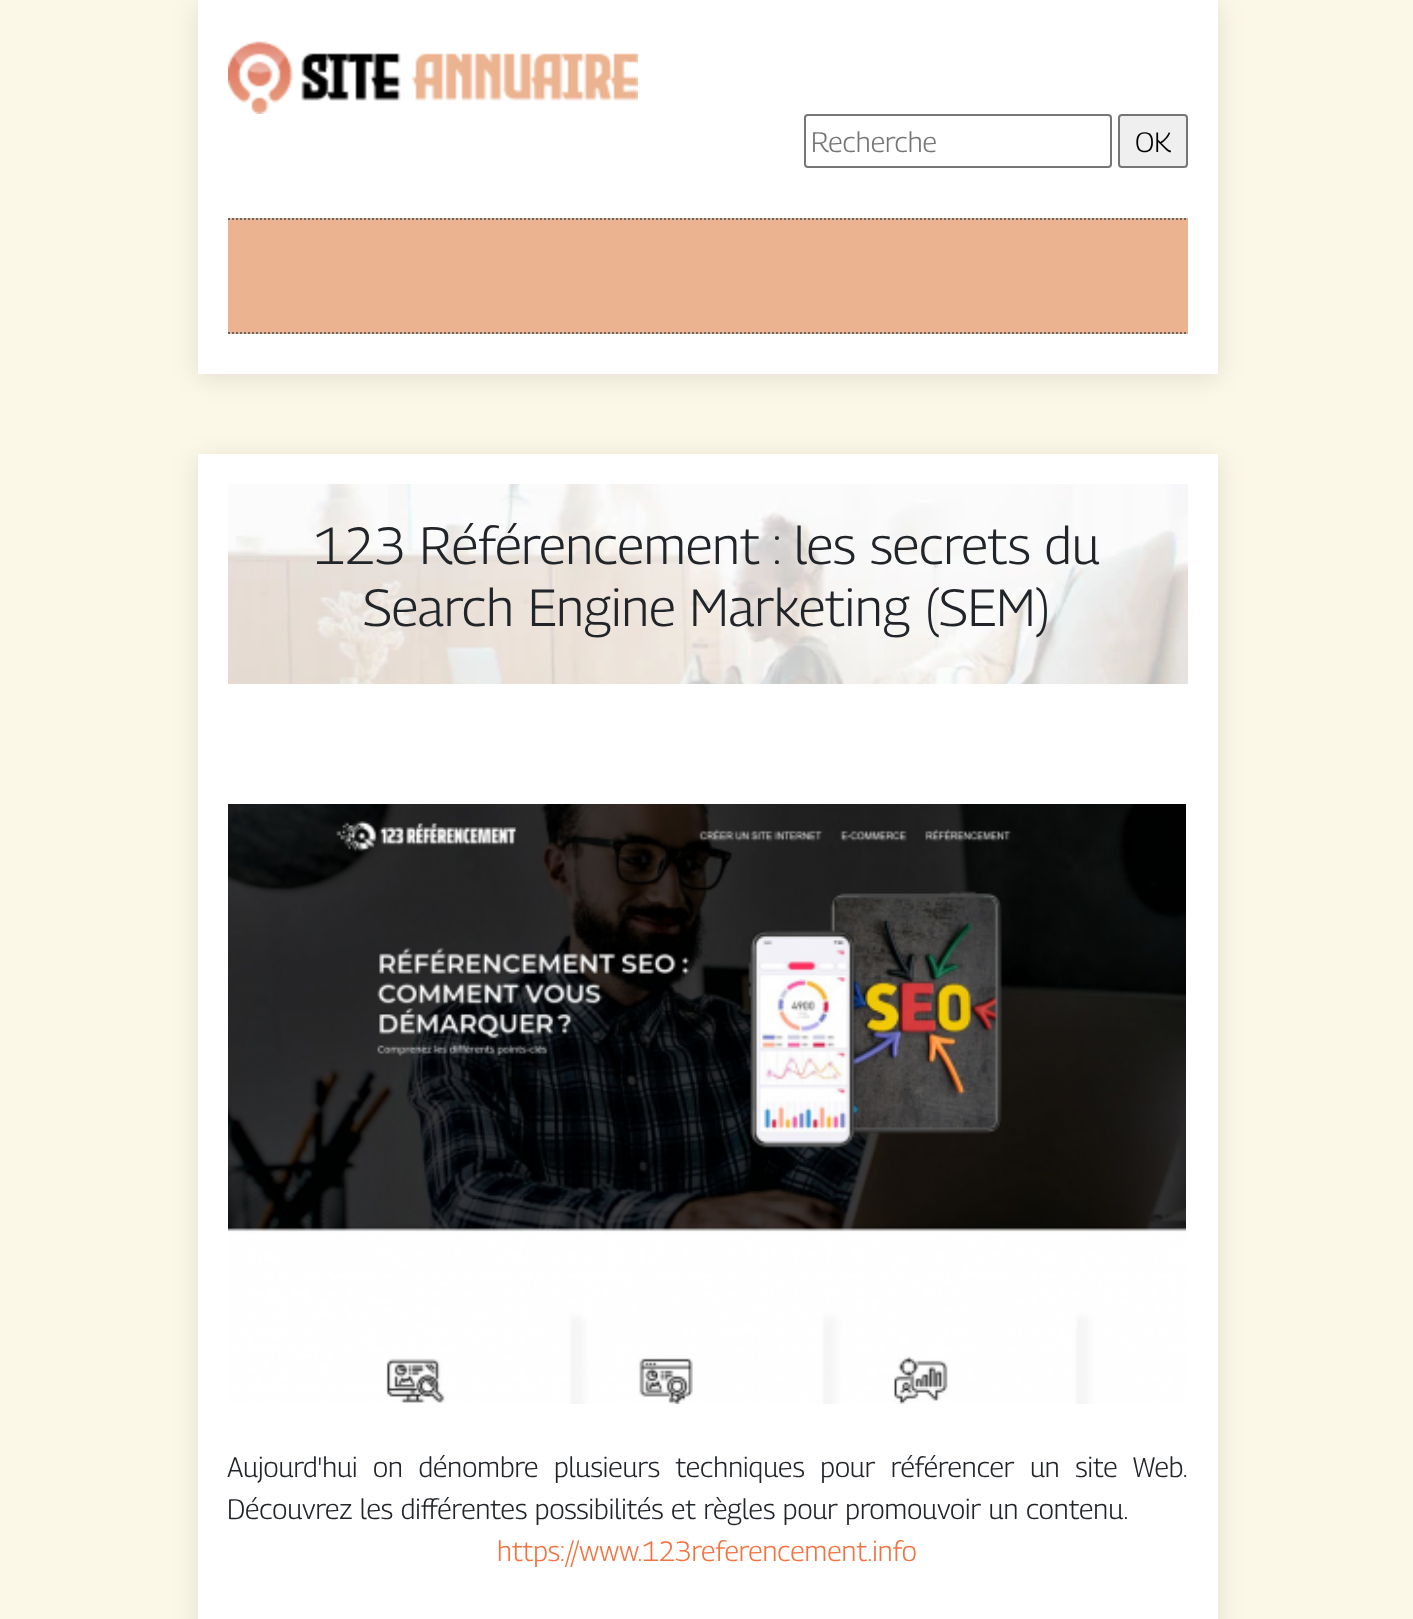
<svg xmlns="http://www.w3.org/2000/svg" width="1413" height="1619">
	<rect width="100%" height="100%" fill="#FCF8E8" />
	<rect x="198" y="4" width="1020" height="374" fill="#000000" fill-opacity="0.1" filter="blur(13px)" />
	<rect x="198" y="0" width="1020" height="374" fill="#FFFFFF" />
	<image x="228" y="41" width="410" height="73" href="assets/img1.png" />
	<rect x="805" y="115" width="306" height="52" rx="3" fill="none" stroke="#767676" stroke-width="2" />
	<text x="811" y="152" font-family="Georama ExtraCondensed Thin" font-size="28" font-weight="100" fill="#757575">Recherche</text>
	<rect x="1119" y="115" width="68" height="52" rx="3" fill="#EFEFEF" stroke="#767676" stroke-width="2" />
	<text x="1135" y="152" font-family="Georama ExtraCondensed Thin" font-size="28" font-weight="100" fill="#000000">OK</text>
	<rect x="228" y="218" width="960" height="116" fill="#ECB390" />
	<path d="M228 219H1188" fill="none" stroke="#666666" stroke-width="2" stroke-dasharray="2 2" />
	<path d="M228 333H1188" fill="none" stroke="#666666" stroke-width="2" stroke-dasharray="2 2" />
	<rect x="198" y="458" width="1020" height="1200" fill="#000000" fill-opacity="0.1" filter="blur(13px)" />
	<rect x="198" y="454" width="1020" height="1165" fill="#FFFFFF" />
	<image x="228" y="484" width="960" height="200" href="assets/img2.png" />
	<g font-family="Georama ExtraCondensed Thin" font-size="52" font-weight="100" fill="#212529">
		<text x="314" y="564">123 Référencement : les secrets du</text>
		<text x="363" y="626">Search Engine Marketing (SEM)</text>
	</g>
	<image x="228" y="804" width="958" height="600" href="assets/img3.png" />
	<g font-family="Georama ExtraCondensed Thin" font-size="28" font-weight="100" fill="#212529">
		<text x="227" y="1477" word-spacing="8">Aujourd'hui on dénombre plusieurs techniques pour référencer un site Web.</text>
		<text x="227" y="1519">Découvrez les différentes possibilités et règles pour promouvoir un contenu.</text>
	</g>
	<text x="497" y="1561" font-family="Georama ExtraCondensed Thin" font-size="28" font-weight="100" fill="#F47340">https://www.123referencement.info</text>
</svg>
